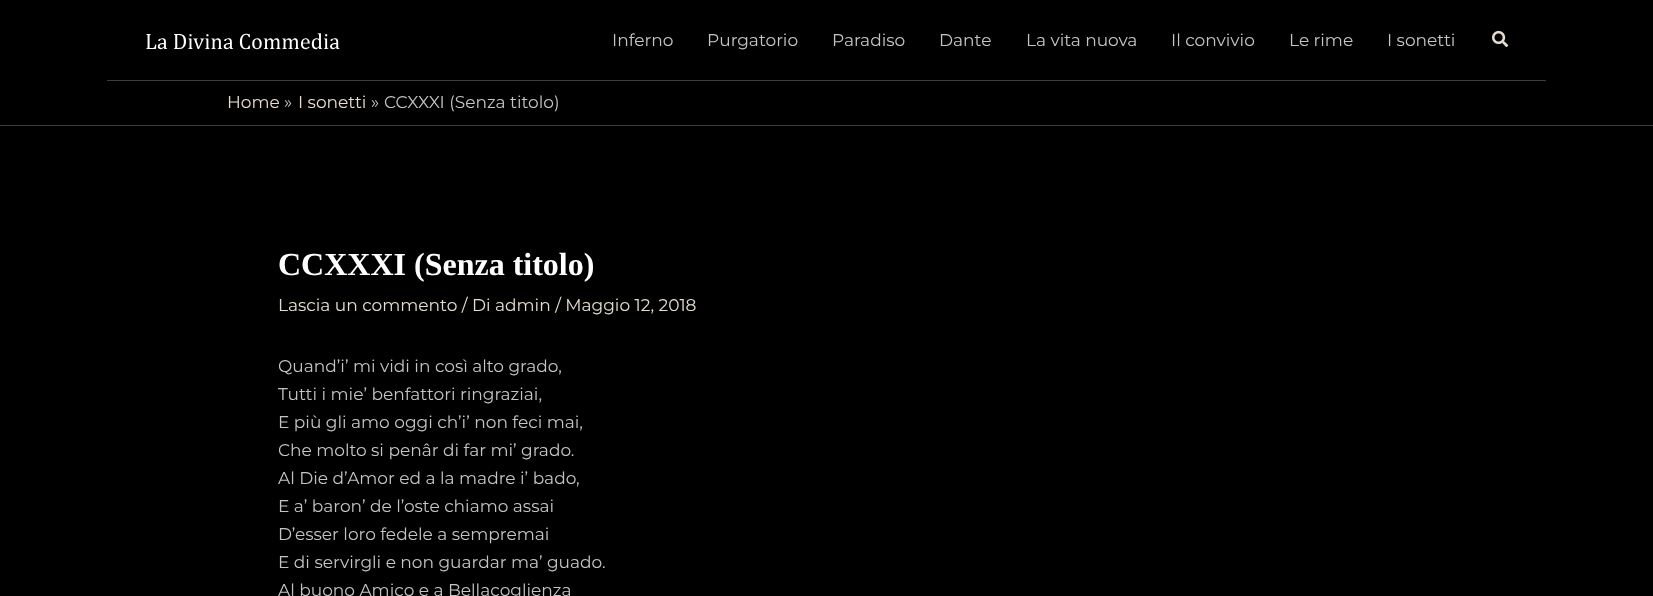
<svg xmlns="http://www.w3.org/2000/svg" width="1653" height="596">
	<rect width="100%" height="100%" fill="#000000" />
	<rect x="107" y="80" width="1439" height="1" fill="#3D3D3D" />
	<image x="146" y="33" width="194" height="17" href="assets/img1.png" />
	<g font-family="Montserrat" font-size="17" font-weight="100" fill="#C4C4C4">
		<text x="612" y="46">Inferno</text>
		<text x="707" y="46">Purgatorio</text>
		<text x="832" y="46">Paradiso</text>
		<text x="939" y="46">Dante</text>
		<text x="1026" y="46">La vita nuova</text>
		<text x="1171" y="46">Il convivio</text>
		<text x="1289" y="46">Le rime</text>
		<text x="1387" y="46">I sonetti</text>
	</g>
	<image x="1492" y="30" width="17" height="17" href="assets/img2.png" />
	<rect x="0" y="125" width="1653" height="1" fill="#3D3D3D" />
	<text x="227" y="108" font-family="Montserrat" font-size="17" font-weight="100" fill="#E6DDCE">Home</text>
	<text x="284" y="108" font-family="Montserrat" font-size="17" font-weight="100" fill="#C4C4C4">»</text>
	<text x="298" y="108" font-family="Montserrat" font-size="17" font-weight="100" fill="#E6DDCE">I sonetti</text>
	<g font-family="Montserrat" font-size="17" font-weight="100" fill="#C4C4C4">
		<text x="371" y="108">»</text>
		<text x="384" y="108">CCXXXI (Senza titolo)</text>
	</g>
	<text x="278" y="275" font-family="Liberation Serif" font-size="32" font-weight="700" fill="#FFFFFF">CCXXXI (Senza titolo)</text>
	<text x="278" y="311" font-family="Montserrat" font-size="17" font-weight="100" fill="#E6DDCE">Lascia un commento / Di admin / Maggio 12, 2018</text>
	<g font-family="Montserrat" font-size="17" font-weight="100" fill="#C4C4C4">
		<text x="278" y="372">Quand’i’ mi vidi in così alto grado,</text>
		<text x="278" y="400">Tutti i mie’ benfattori ringraziai,</text>
		<text x="278" y="428">E più gli amo oggi ch’i’ non feci mai,</text>
		<text x="278" y="456">Che molto si penâr di far mi’ grado.</text>
		<text x="278" y="484">Al Die d’Amor ed a la madre i’ bado,</text>
		<text x="278" y="512">E a’ baron’ de l’oste chiamo assai</text>
		<text x="278" y="540">D’esser loro fedele a sempremai</text>
		<text x="278" y="568">E di servirgli e non guardar ma’ guado.</text>
		<text x="278" y="596">Al buono Amico e a Bellacoglienza</text>
	</g>
</svg>
